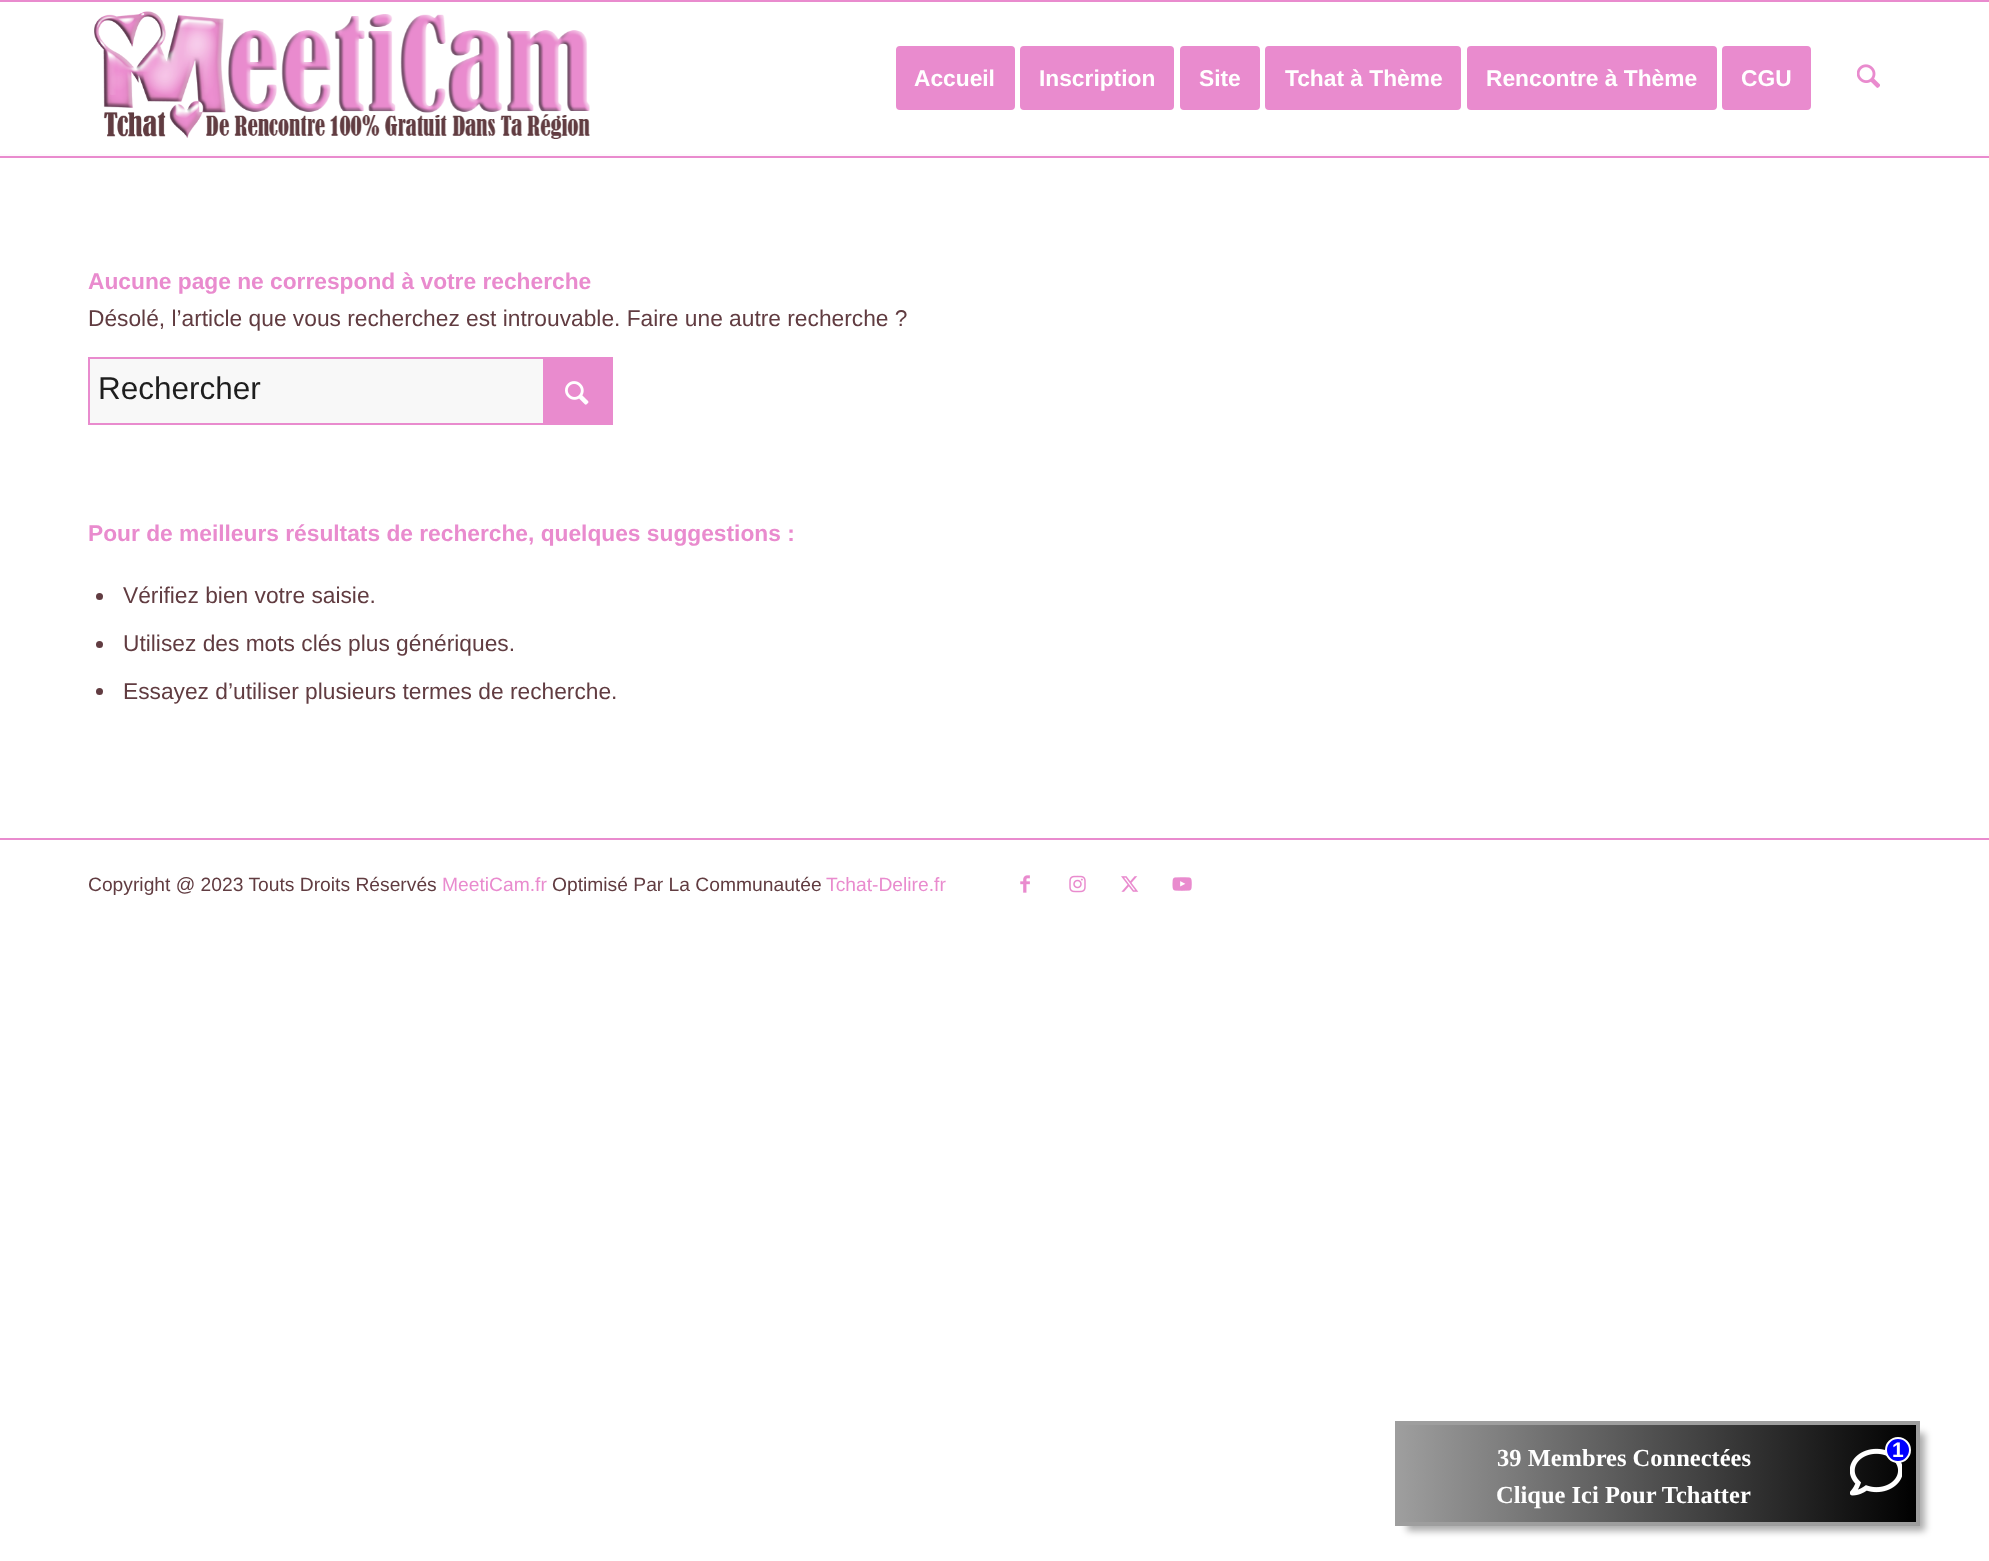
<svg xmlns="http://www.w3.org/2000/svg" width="1989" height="1561">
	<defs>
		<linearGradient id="g1" gradientUnits="userSpaceOnUse" x1="1398" y1="1474" x2="1916" y2="1474"><stop offset="0" stop-color="#9E9E9E" /><stop offset="1" stop-color="#000000" /></linearGradient>
	</defs>
	<rect width="100%" height="100%" fill="#FFFFFF" />
	<rect x="0" y="0" width="1989" height="2" fill="#E98BCE" />
	<rect x="0" y="156" width="1989" height="2" fill="#E98BCE" />
	<image x="94" y="11" width="496" height="128" href="assets/img1.png" />
	<rect x="898" y="48" width="115" height="60" rx="2" fill="#E98BCE" stroke="#E98BCE" stroke-width="4" />
	<text x="914" y="86" font-family="Liberation Sans" font-size="22.75" font-weight="700" fill="#FFFFFF">Accueil</text>
	<rect x="1022" y="48" width="150" height="60" rx="2" fill="#E98BCE" stroke="#E98BCE" stroke-width="4" />
	<text x="1039" y="86" font-family="Liberation Sans" font-size="22.75" font-weight="700" fill="#FFFFFF">Inscription</text>
	<rect x="1182" y="48" width="76" height="60" rx="2" fill="#E98BCE" stroke="#E98BCE" stroke-width="4" />
	<text x="1199" y="86" font-family="Liberation Sans" font-size="22.75" font-weight="700" fill="#FFFFFF">Site</text>
	<rect x="1267" y="48" width="192" height="60" rx="2" fill="#E98BCE" stroke="#E98BCE" stroke-width="4" />
	<text x="1285" y="86" font-family="Liberation Sans" font-size="22.75" font-weight="700" fill="#FFFFFF">Tchat à Thème</text>
	<rect x="1469" y="48" width="246" height="60" rx="2" fill="#E98BCE" stroke="#E98BCE" stroke-width="4" />
	<text x="1486" y="86" font-family="Liberation Sans" font-size="22.75" font-weight="700" fill="#FFFFFF">Rencontre à Thème</text>
	<rect x="1724" y="48" width="85" height="60" rx="2" fill="#E98BCE" stroke="#E98BCE" stroke-width="4" />
	<text x="1741" y="86" font-family="Liberation Sans" font-size="22.75" font-weight="700" fill="#FFFFFF">CGU</text>
	<image x="1857" y="64" width="23" height="24" href="assets/img2.png" />
	<rect x="0" y="154" width="1989" height="2" fill="#FEF9FD" />
	<text x="88" y="289" font-family="Liberation Sans" font-size="22.75" font-weight="700" fill="#E98BCE">Aucune page ne correspond à votre recherche</text>
	<text x="88" y="326" font-family="Liberation Sans" font-size="22.75" fill="#613C41">Désolé, l’article que vous recherchez est introuvable. Faire une autre recherche ?</text>
	<rect x="90" y="359" width="453" height="64" fill="#F8F8F8" />
	<rect x="89" y="358" width="523" height="66" fill="none" stroke="#E98BCE" stroke-width="2" />
	<text x="98" y="399" font-family="Liberation Sans" font-size="31.5" fill="#1E1E1E">Rechercher</text>
	<rect x="543" y="359" width="68" height="64" fill="#E98BCE" />
	<image x="565" y="381" width="24" height="24" href="assets/img3.png" />
	<text x="88" y="541" font-family="Liberation Sans" font-size="22.75" font-weight="700" fill="#E98BCE">Pour de meilleurs résultats de recherche, quelques suggestions :</text>
	<circle cx="99.5" cy="596.5" r="3.5" fill="#613C41" />
	<text x="123" y="603" font-family="Liberation Sans" font-size="22.75" fill="#613C41">Vérifiez bien votre saisie.</text>
	<circle cx="99.5" cy="644.5" r="3.5" fill="#613C41" />
	<text x="123" y="651" font-family="Liberation Sans" font-size="22.75" fill="#613C41">Utilisez des mots clés plus génériques.</text>
	<circle cx="99.5" cy="691.5" r="3.5" fill="#613C41" />
	<text x="123" y="699" font-family="Liberation Sans" font-size="22.75" fill="#613C41">Essayez d’utiliser plusieurs termes de recherche.</text>
	<rect x="0" y="838" width="1989" height="2" fill="#E98BCE" />
	<text x="88" y="891" font-family="Liberation Sans" font-size="19.25" fill="#613C41">Copyright @ 2023 Touts Droits Réservés</text>
	<text x="442" y="891" font-family="Liberation Sans" font-size="19.25" fill="#E98BCE">MeetiCam.fr</text>
	<text x="552" y="891" font-family="Liberation Sans" font-size="19.25" fill="#613C41">Optimisé Par La Communautée</text>
	<text x="826" y="891" font-family="Liberation Sans" font-size="19.25" fill="#E98BCE">Tchat-Delire.fr</text>
	<image x="1020" y="875" width="10" height="18" href="assets/img4.png" />
	<image x="1069" y="875" width="17" height="18" href="assets/img5.png" />
	<image x="1121" y="876" width="18" height="16" href="assets/img6.png" />
	<image x="1172" y="877" width="20" height="14" href="assets/img7.png" />
	<rect x="1407" y="1433" width="518" height="98" fill="#000000" fill-opacity="0.33" filter="blur(3.5px)" />
	<rect x="1399" y="1425" width="517" height="97" fill="url(#g1)" />
	<rect x="1397" y="1423" width="521" height="101" fill="none" stroke="#9E9E9E" stroke-width="4" />
	<g font-family="Liberation Serif" font-size="24.5" font-weight="700" fill="#FFFFFF">
		<text x="1497" y="1466">39 Membres Connectées</text>
		<text x="1496" y="1503">Clique Ici Pour Tchatter</text>
	</g>
	<image x="1850" y="1448" width="52" height="48" href="assets/img8.png" />
	<circle cx="1898" cy="1450" r="12" fill="#0000FF" stroke="#FFFFFF" stroke-width="2" />
	<text x="1892" y="1457" font-family="Liberation Sans" font-size="21" font-weight="700" fill="#FFFFFF">1</text>
</svg>
